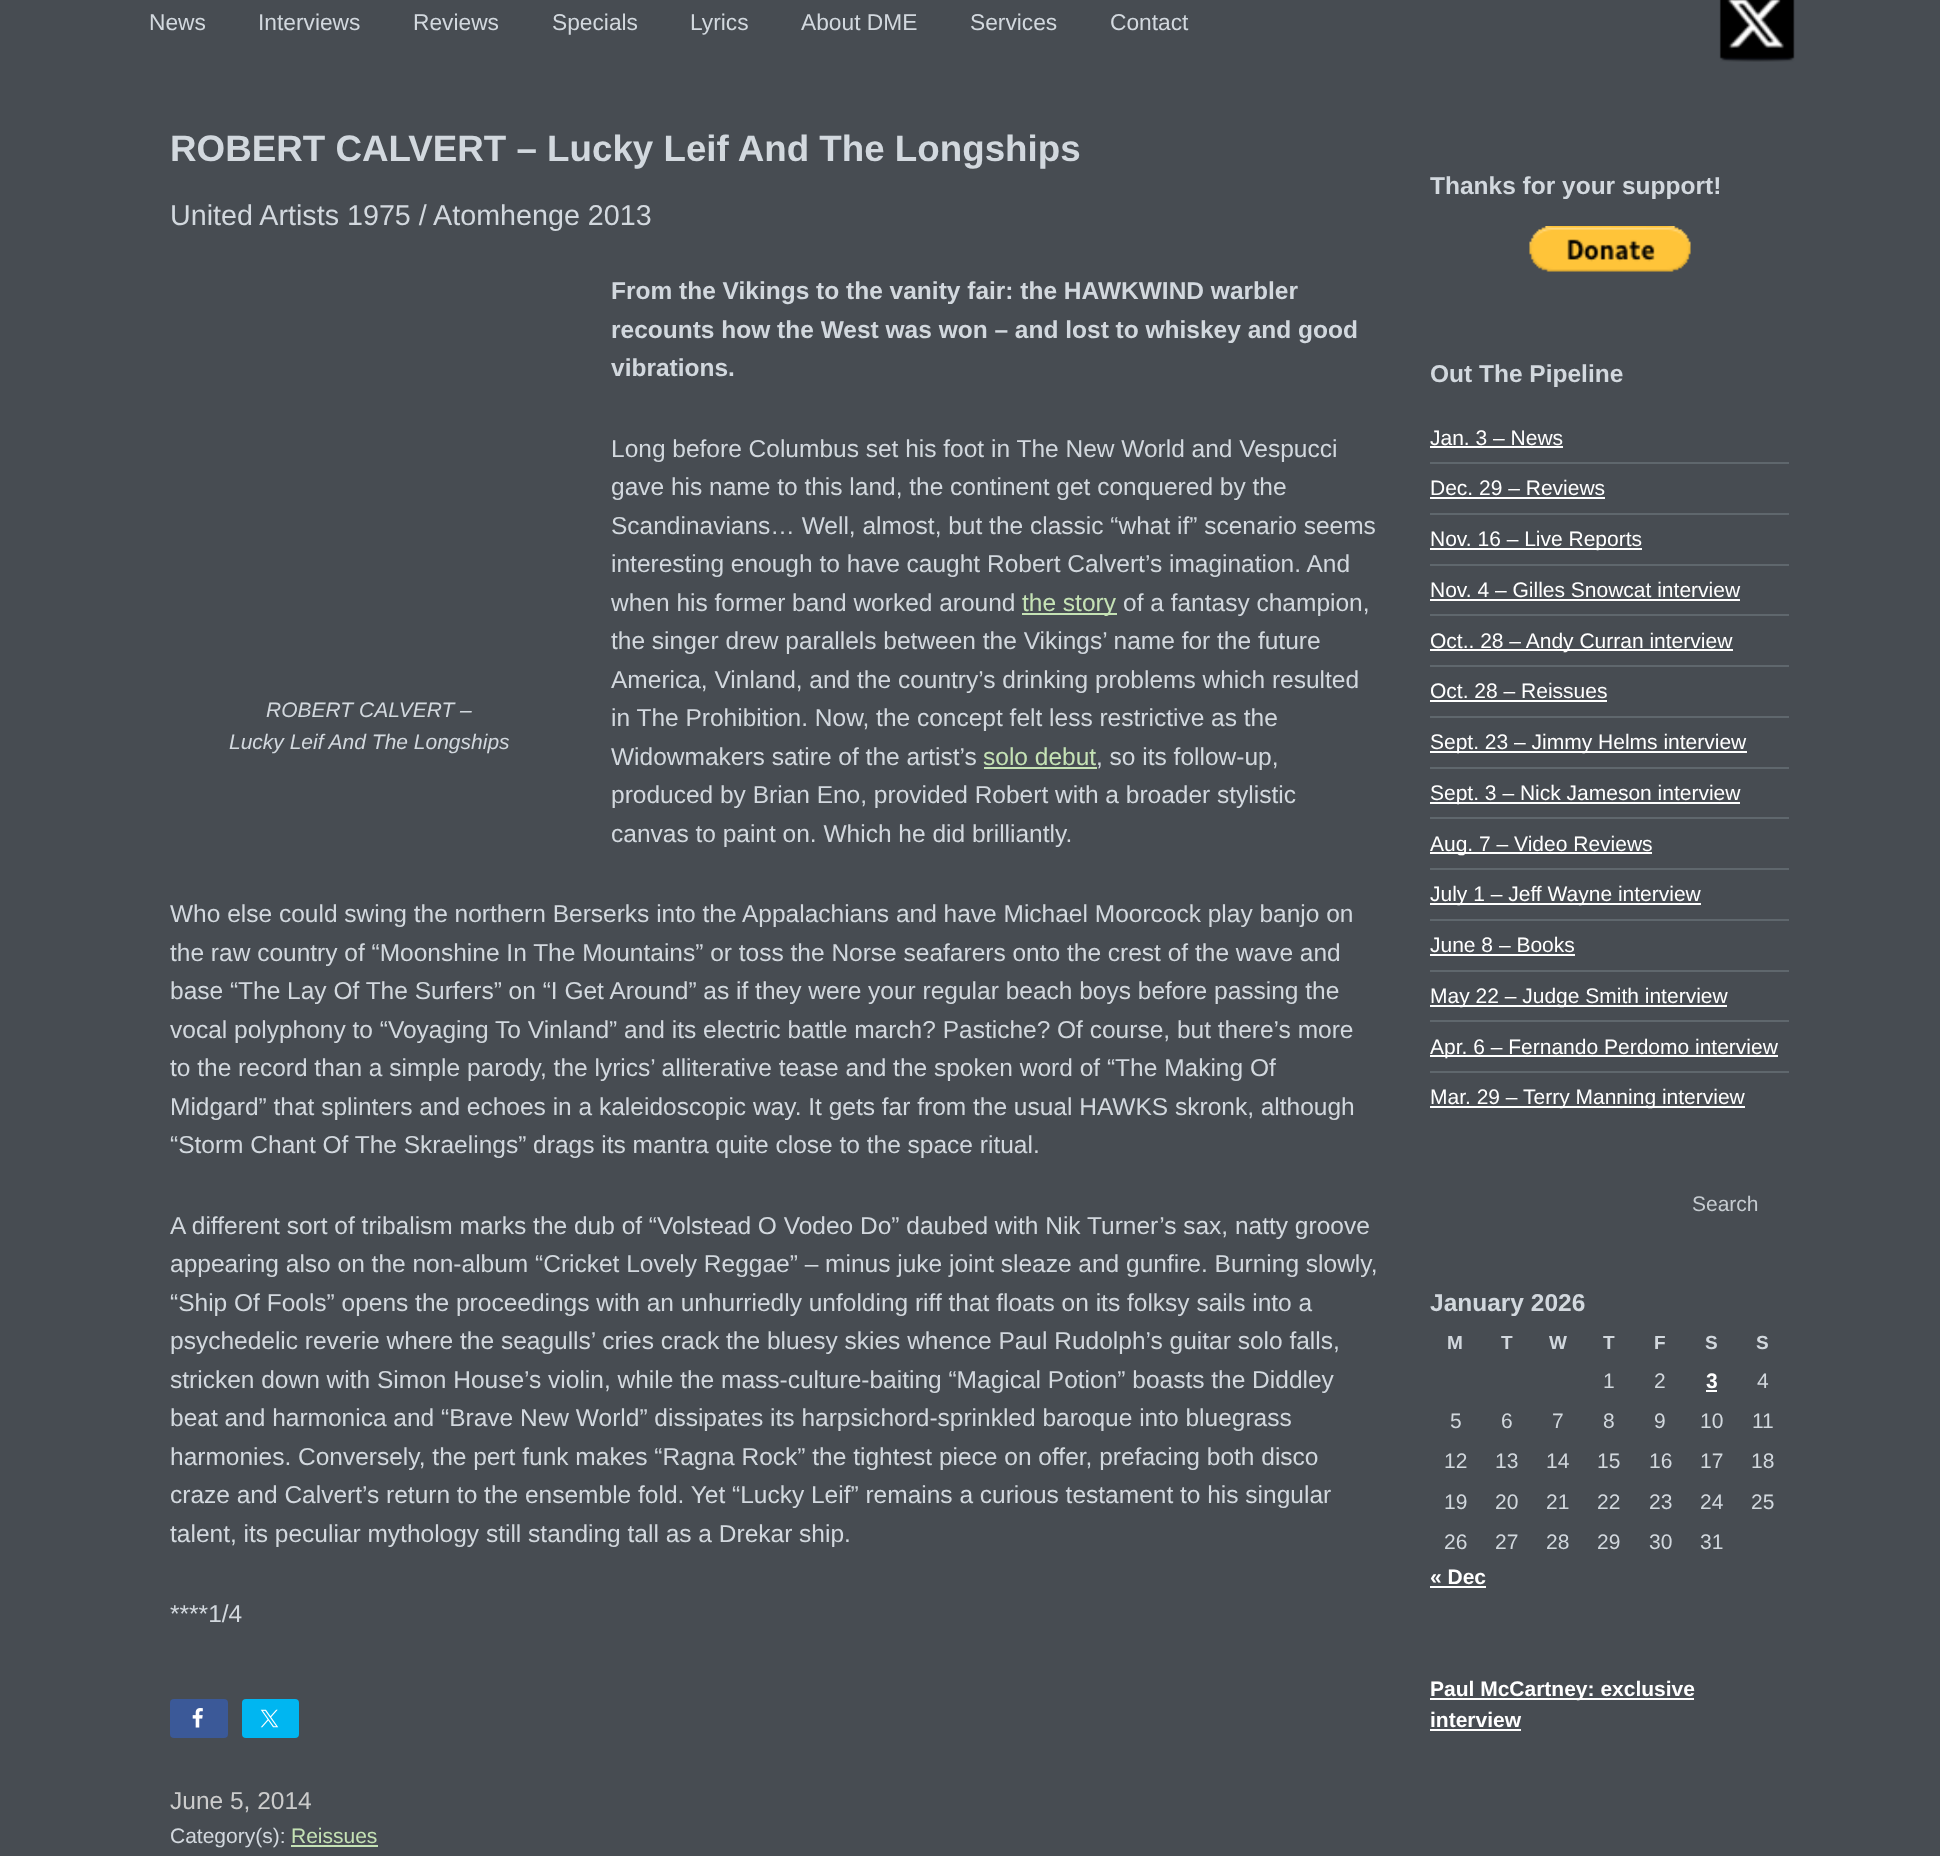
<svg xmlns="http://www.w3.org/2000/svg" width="1940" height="1856">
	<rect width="100%" height="100%" fill="#474C52" />
	<g font-family="Liberation Sans" font-size="22.75" fill="#D2D8DE">
		<text x="149" y="30">News</text>
		<text x="258" y="30">Interviews</text>
		<text x="413" y="30">Reviews</text>
		<text x="552" y="30">Specials</text>
		<text x="690" y="30">Lyrics</text>
		<text x="801" y="30">About DME</text>
		<text x="970" y="30">Services</text>
		<text x="1110" y="30">Contact</text>
	</g>
	<image x="1719" y="0" width="76" height="62" href="assets/img1.png" />
	<text x="170" y="161" font-family="Liberation Sans" font-size="36.75" font-weight="700" fill="#D2D8DE">ROBERT CALVERT – Lucky Leif And The Longships</text>
	<text x="170" y="225" font-family="Liberation Sans" font-size="28.7" fill="#D2D8DE">United Artists 1975 / Atomhenge 2013</text>
	<g font-family="Liberation Sans" font-size="24.5" font-weight="700" fill="#D2D8DE">
		<text x="611" y="299">From the Vikings to the vanity fair: the HAWKWIND warbler</text>
		<text x="611" y="338">recounts how the West was won – and lost to whiskey and good</text>
		<text x="611" y="376">vibrations.</text>
	</g>
	<g font-family="Liberation Sans" font-size="21" font-style="italic" fill="#D2D8DE">
		<text x="266" y="717">ROBERT CALVERT –</text>
		<text x="229" y="749">Lucky Leif And The Longships</text>
	</g>
	<g font-family="Liberation Sans" font-size="24.5" fill="#D2D8DE">
		<text x="611" y="457">Long before Columbus set his foot in The New World and Vespucci</text>
		<text x="611" y="495">gave his name to this land, the continent get conquered by the</text>
		<text x="611" y="534">Scandinavians… Well, almost, but the classic “what if” scenario seems</text>
		<text x="611" y="572">interesting enough to have caught Robert Calvert’s imagination. And</text>
		<text x="611" y="611">when his former band worked around</text>
	</g>
	<rect x="1022" y="613" width="95" height="2" fill="#C5E2B5" />
	<text x="1022" y="611" font-family="Liberation Sans" font-size="24.5" fill="#C5E2B5">the story</text>
	<g font-family="Liberation Sans" font-size="24.5" fill="#D2D8DE">
		<text x="1123" y="611">of a fantasy champion,</text>
		<text x="611" y="649">the singer drew parallels between the Vikings’ name for the future</text>
		<text x="611" y="688">America, Vinland, and the country’s drinking problems which resulted</text>
		<text x="611" y="726">in The Prohibition. Now, the concept felt less restrictive as the</text>
		<text x="611" y="765">Widowmakers satire of the artist’s</text>
	</g>
	<text x="983" y="765" font-family="Liberation Sans" font-size="24.5" fill="#C5E2B5">solo debut</text>
	<rect x="984" y="767" width="113" height="2" fill="#C5E2B5" />
	<g font-family="Liberation Sans" font-size="24.5" fill="#D2D8DE">
		<text x="1096" y="765">, so its follow-up,</text>
		<text x="611" y="803">produced by Brian Eno, provided Robert with a broader stylistic</text>
		<text x="611" y="842">canvas to paint on. Which he did brilliantly.</text>
		<text x="170" y="922">Who else could swing the northern Berserks into the Appalachians and have Michael Moorcock play banjo on</text>
		<text x="170" y="961">the raw country of “Moonshine In The Mountains” or toss the Norse seafarers onto the crest of the wave and</text>
		<text x="170" y="999">base “The Lay Of The Surfers” on “I Get Around” as if they were your regular beach boys before passing the</text>
		<text x="170" y="1038">vocal polyphony to “Voyaging To Vinland” and its electric battle march? Pastiche? Of course, but there’s more</text>
		<text x="170" y="1076">to the record than a simple parody, the lyrics’ alliterative tease and the spoken word of “The Making Of</text>
		<text x="170" y="1115">Midgard” that splinters and echoes in a kaleidoscopic way. It gets far from the usual HAWKS skronk, although</text>
		<text x="170" y="1153">“Storm Chant Of The Skraelings” drags its mantra quite close to the space ritual.</text>
		<text x="170" y="1234">A different sort of tribalism marks the dub of “Volstead O Vodeo Do” daubed with Nik Turner’s sax, natty groove</text>
		<text x="170" y="1272">appearing also on the non-album “Cricket Lovely Reggae” – minus juke joint sleaze and gunfire. Burning slowly,</text>
		<text x="170" y="1311">“Ship Of Fools” opens the proceedings with an unhurriedly unfolding riff that floats on its folksy sails into a</text>
		<text x="170" y="1349">psychedelic reverie where the seagulls’ cries crack the bluesy skies whence Paul Rudolph’s guitar solo falls,</text>
		<text x="170" y="1388">stricken down with Simon House’s violin, while the mass-culture-baiting “Magical Potion” boasts the Diddley</text>
		<text x="170" y="1426">beat and harmonica and “Brave New World” dissipates its harpsichord-sprinkled baroque into bluegrass</text>
		<text x="170" y="1465">harmonies. Conversely, the pert funk makes “Ragna Rock” the tightest piece on offer, prefacing both disco</text>
		<text x="170" y="1503">craze and Calvert’s return to the ensemble fold. Yet “Lucky Leif” remains a curious testament to his singular</text>
		<text x="170" y="1542">talent, its peculiar mythology still standing tall as a Drekar ship.</text>
		<text x="170" y="1622">****1/4</text>
	</g>
	<rect x="170" y="1699" width="58" height="39" rx="4" fill="#3B5998" />
	<image x="192" y="1708" width="11" height="20" href="assets/img2.png" />
	<rect x="242" y="1699" width="57" height="39" rx="4" fill="#00B6F1" />
	<image x="260" y="1709" width="19" height="19" href="assets/img3.png" />
	<text x="170" y="1809" font-family="Liberation Sans" font-size="24.5" fill="#CCCCCC">June 5, 2014</text>
	<text x="170" y="1843" font-family="Liberation Sans" font-size="21" fill="#D2D8DE">Category(s):</text>
	<text x="291" y="1843" font-family="Liberation Sans" font-size="21" fill="#C5E2B5">Reissues</text>
	<rect x="291" y="1845" width="87" height="2" fill="#C5E2B5" />
	<text x="1430" y="194" font-family="Liberation Sans" font-size="24.5" font-weight="700" fill="#D2D8DE">Thanks for your support!</text>
	<image x="1529" y="226" width="162" height="46" href="assets/img4.png" />
	<text x="1430" y="382" font-family="Liberation Sans" font-size="24.5" font-weight="700" fill="#D2D8DE">Out The Pipeline</text>
	<text x="1430" y="445" font-family="Liberation Sans" font-size="21" fill="#FFFFFF">Jan. 3 – News</text>
	<rect x="1430" y="446" width="133" height="2" fill="#FFFFFF" />
	<rect x="1430" y="462" width="359" height="2" fill="#5F676D" />
	<text x="1430" y="495" font-family="Liberation Sans" font-size="21" fill="#FFFFFF">Dec. 29 – Reviews</text>
	<rect x="1430" y="497" width="175" height="2" fill="#FFFFFF" />
	<rect x="1430" y="513" width="359" height="2" fill="#5F676D" />
	<rect x="1430" y="548" width="212" height="2" fill="#FFFFFF" />
	<text x="1430" y="546" font-family="Liberation Sans" font-size="21" fill="#FFFFFF">Nov. 16 – Live Reports</text>
	<rect x="1430" y="564" width="359" height="2" fill="#5F676D" />
	<text x="1430" y="597" font-family="Liberation Sans" font-size="21" fill="#FFFFFF">Nov. 4 – Gilles Snowcat interview</text>
	<rect x="1430" y="599" width="310" height="2" fill="#FFFFFF" />
	<rect x="1430" y="614" width="359" height="2" fill="#5F676D" />
	<rect x="1430" y="649" width="303" height="2" fill="#FFFFFF" />
	<text x="1430" y="648" font-family="Liberation Sans" font-size="21" fill="#FFFFFF">Oct.. 28 – Andy Curran interview</text>
	<rect x="1430" y="665" width="359" height="2" fill="#5F676D" />
	<text x="1430" y="698" font-family="Liberation Sans" font-size="21" fill="#FFFFFF">Oct. 28 – Reissues</text>
	<rect x="1430" y="700" width="177" height="2" fill="#FFFFFF" />
	<rect x="1430" y="716" width="359" height="2" fill="#5F676D" />
	<rect x="1430" y="751" width="317" height="2" fill="#FFFFFF" />
	<text x="1430" y="749" font-family="Liberation Sans" font-size="21" fill="#FFFFFF">Sept. 23 – Jimmy Helms interview</text>
	<rect x="1430" y="767" width="359" height="2" fill="#5F676D" />
	<rect x="1430" y="802" width="310" height="2" fill="#FFFFFF" />
	<text x="1430" y="800" font-family="Liberation Sans" font-size="21" fill="#FFFFFF">Sept. 3 – Nick Jameson interview</text>
	<rect x="1430" y="817" width="359" height="2" fill="#5F676D" />
	<rect x="1430" y="852" width="222" height="2" fill="#FFFFFF" />
	<text x="1430" y="851" font-family="Liberation Sans" font-size="21" fill="#FFFFFF">Aug. 7 – Video Reviews</text>
	<rect x="1430" y="868" width="359" height="2" fill="#5F676D" />
	<rect x="1430" y="903" width="271" height="2" fill="#FFFFFF" />
	<text x="1430" y="901" font-family="Liberation Sans" font-size="21" fill="#FFFFFF">July 1 – Jeff Wayne interview</text>
	<rect x="1430" y="919" width="359" height="2" fill="#5F676D" />
	<text x="1430" y="952" font-family="Liberation Sans" font-size="21" fill="#FFFFFF">June 8 – Books</text>
	<rect x="1430" y="954" width="145" height="2" fill="#FFFFFF" />
	<rect x="1430" y="970" width="359" height="2" fill="#5F676D" />
	<rect x="1430" y="1005" width="297" height="2" fill="#FFFFFF" />
	<text x="1430" y="1003" font-family="Liberation Sans" font-size="21" fill="#FFFFFF">May 22 – Judge Smith interview</text>
	<rect x="1430" y="1020" width="359" height="2" fill="#5F676D" />
	<rect x="1430" y="1055" width="348" height="2" fill="#FFFFFF" />
	<text x="1430" y="1054" font-family="Liberation Sans" font-size="21" fill="#FFFFFF">Apr. 6 – Fernando Perdomo interview</text>
	<rect x="1430" y="1071" width="359" height="2" fill="#5F676D" />
	<rect x="1430" y="1106" width="315" height="2" fill="#FFFFFF" />
	<text x="1430" y="1104" font-family="Liberation Sans" font-size="21" fill="#FFFFFF">Mar. 29 – Terry Manning interview</text>
	<text x="1692" y="1211" font-family="Liberation Sans" font-size="21" fill="#C5CBD0">Search</text>
	<text x="1430" y="1311" font-family="Liberation Sans" font-size="24.5" font-weight="700" fill="#D2D8DE">January 2026</text>
	<g font-family="Liberation Sans" font-size="19" font-weight="700" fill="#D2D8DE">
		<text x="1447" y="1349">M</text>
		<text x="1501" y="1349">T</text>
		<text x="1549" y="1349">W</text>
		<text x="1603" y="1349">T</text>
		<text x="1654" y="1349">F</text>
		<text x="1705" y="1349">S</text>
		<text x="1756" y="1349">S</text>
	</g>
	<g font-family="Liberation Sans" font-size="21" fill="#D2D8DE">
		<text x="1603" y="1388">1</text>
		<text x="1654" y="1388">2</text>
	</g>
	<text x="1706" y="1388" font-family="Liberation Sans" font-size="21" font-weight="700" fill="#FFFFFF">3</text>
	<rect x="1706" y="1390" width="11" height="2" fill="#FFFFFF" />
	<g font-family="Liberation Sans" font-size="21" fill="#D2D8DE">
		<text x="1757" y="1388">4</text>
		<text x="1450" y="1428">5</text>
		<text x="1501" y="1428">6</text>
		<text x="1552" y="1428">7</text>
		<text x="1603" y="1428">8</text>
		<text x="1654" y="1428">9</text>
		<text x="1700" y="1428">10</text>
		<text x="1752" y="1428">11</text>
		<text x="1444" y="1468">12</text>
		<text x="1495" y="1468">13</text>
		<text x="1546" y="1468">14</text>
		<text x="1597" y="1468">15</text>
		<text x="1649" y="1468">16</text>
		<text x="1700" y="1468">17</text>
		<text x="1751" y="1468">18</text>
		<text x="1444" y="1509">19</text>
		<text x="1495" y="1509">20</text>
		<text x="1546" y="1509">21</text>
		<text x="1597" y="1509">22</text>
		<text x="1649" y="1509">23</text>
		<text x="1700" y="1509">24</text>
		<text x="1751" y="1509">25</text>
		<text x="1444" y="1549">26</text>
		<text x="1495" y="1549">27</text>
		<text x="1546" y="1549">28</text>
		<text x="1597" y="1549">29</text>
		<text x="1649" y="1549">30</text>
		<text x="1700" y="1549">31</text>
	</g>
	<text x="1430" y="1584" font-family="Liberation Sans" font-size="21" font-weight="700" fill="#FFFFFF">« Dec</text>
	<rect x="1430" y="1586" width="56" height="2" fill="#FFFFFF" />
	<rect x="1430" y="1698" width="264" height="2" fill="#FFFFFF" />
	<g font-family="Liberation Sans" font-size="21" font-weight="700" fill="#FFFFFF">
		<text x="1430" y="1696">Paul McCartney: exclusive</text>
		<text x="1430" y="1727">interview</text>
	</g>
	<rect x="1430" y="1729" width="91" height="2" fill="#FFFFFF" />
</svg>
